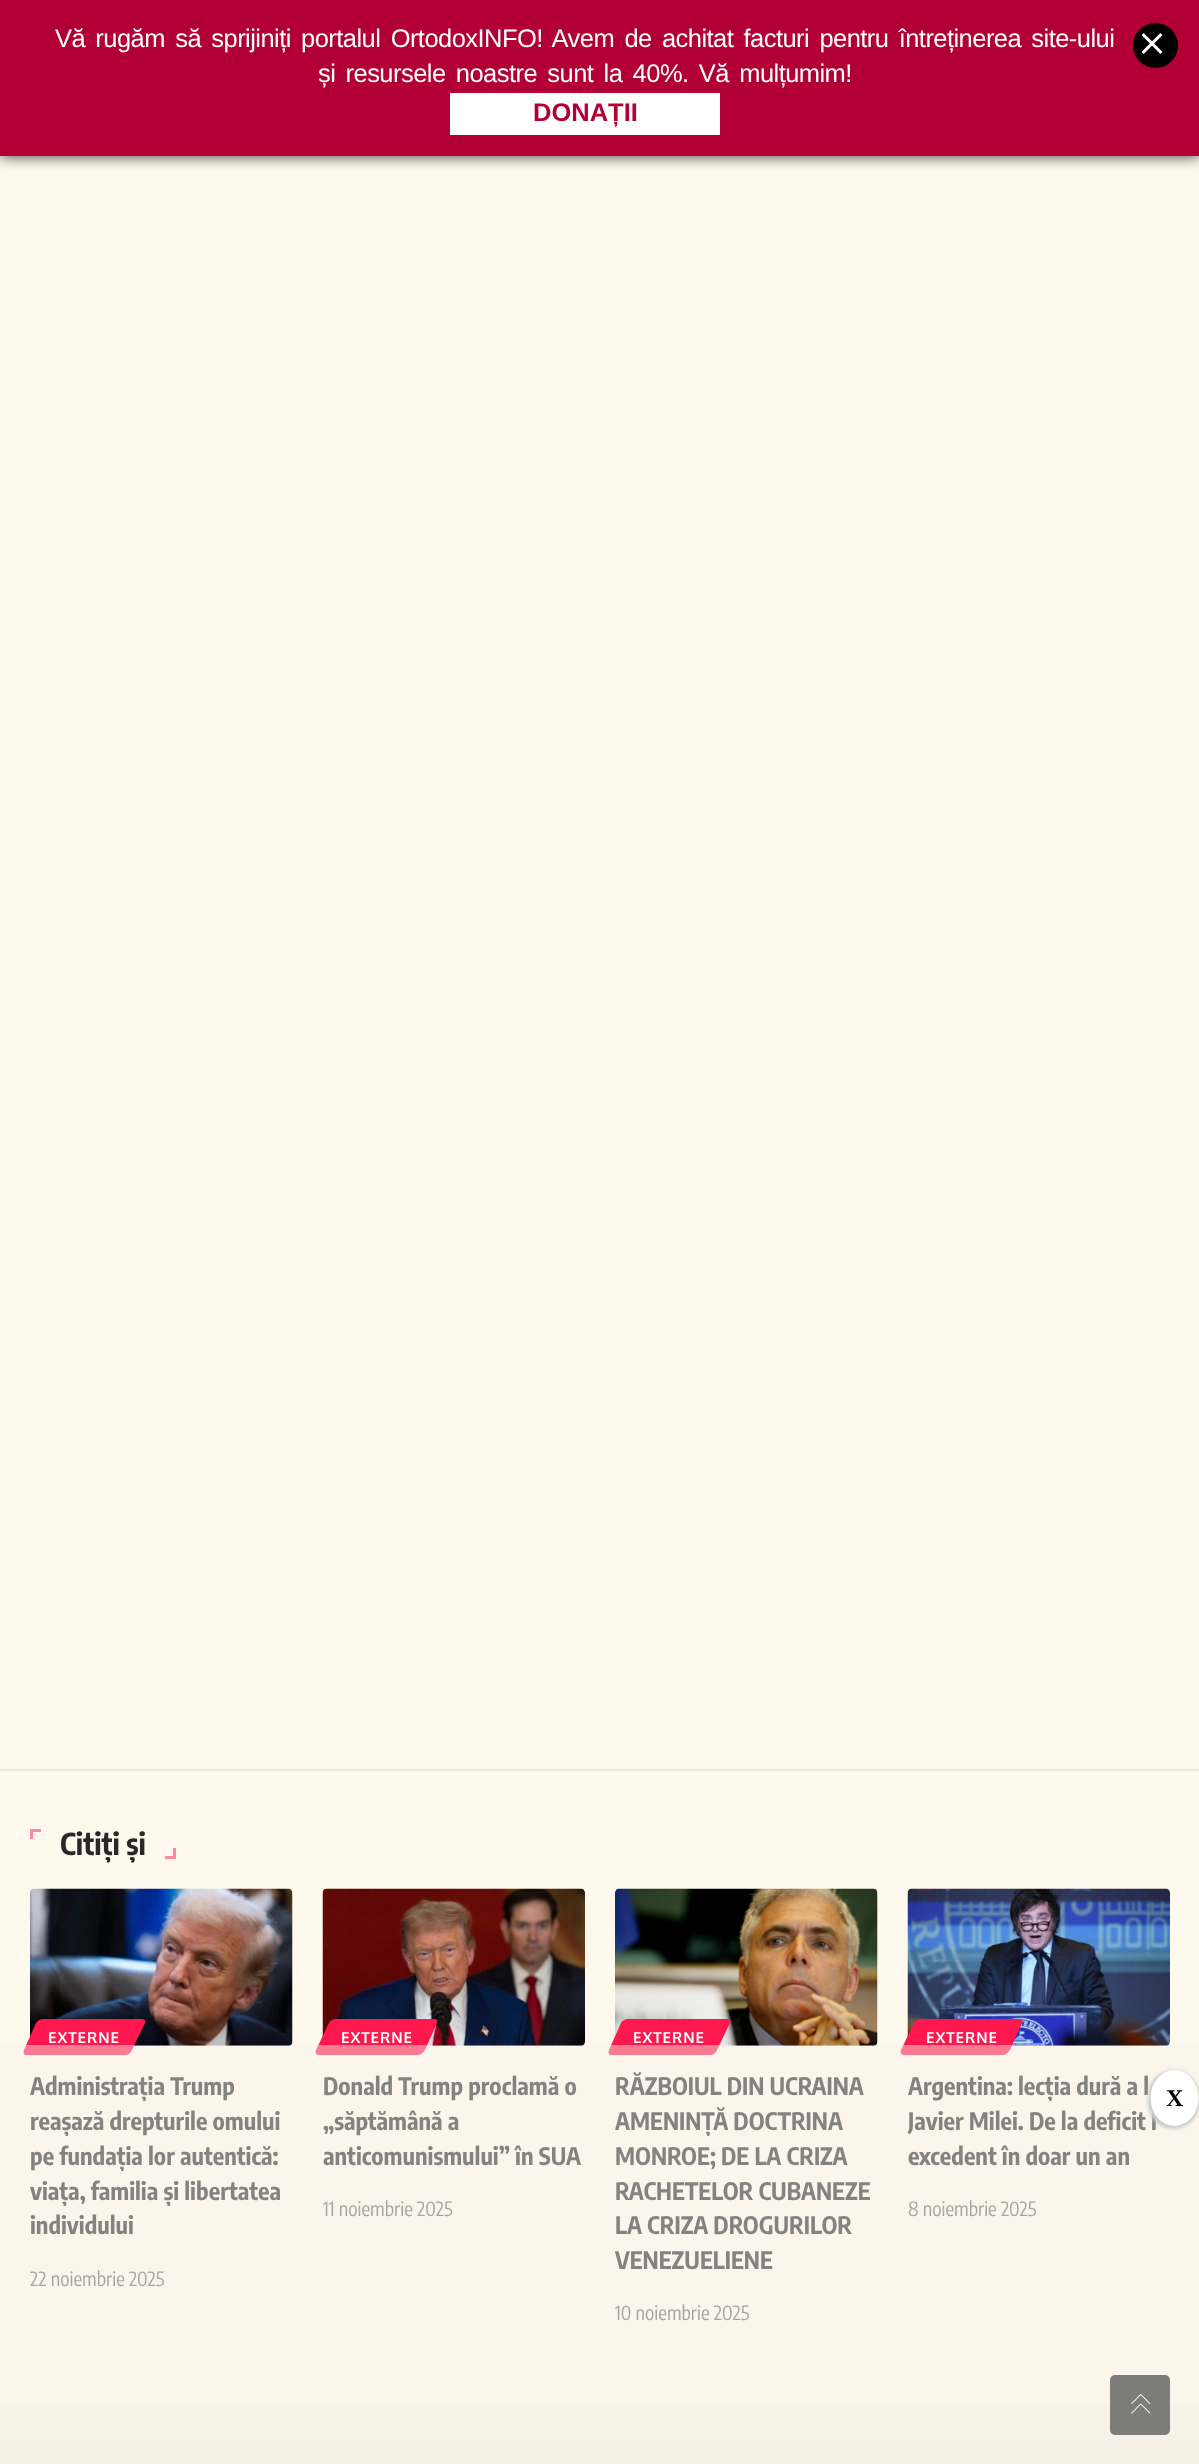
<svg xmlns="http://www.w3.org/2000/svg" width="1199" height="2464">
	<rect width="100%" height="100%" fill="#FFF8ED" />
	<rect x="0" y="0" width="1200" height="156" fill="#000000" fill-opacity="0.8" filter="blur(7.5px)" />
	<rect x="0" y="0" width="1199" height="156" fill="#B20035" />
	<g font-family="Liberation Sans" font-size="25.5" letter-spacing="-0.55" fill="#FFFFFF">
		<text x="55" y="47" word-spacing="3.75">Vă rugăm să sprijiniți portalul OrtodoxINFO! Avem de achitat facturi pentru întreținerea site-ului</text>
		<text x="318" y="82" word-spacing="3.75">și resursele noastre sunt la 40%. Vă mulțumim!</text>
	</g>
	<circle cx="1155.5" cy="45.5" r="22.5" fill="#000000" />
	<image x="1142" y="33" width="21" height="21" href="assets/img1.png" />
	<rect x="450" y="93" width="270" height="42" fill="#FFFFFF" />
	<text x="533" y="121" font-family="Liberation Sans" font-size="25.5" font-weight="700" fill="#B20035">DONAȚII</text>
	<rect x="0" y="1769" width="1199" height="2" fill="#EDE7DE" />
	<rect x="30" y="1829" width="11" height="3" fill="#FF889E" />
	<rect x="30" y="1829" width="3" height="10" fill="#FF889E" />
	<text x="60" y="1855" font-family="Encode Sans Condensed" font-size="30" font-weight="700" fill="#282828">Citiți și</text>
	<rect x="173" y="1848" width="3" height="11" fill="#FF889E" />
	<rect x="165" y="1856" width="11" height="3" fill="#FF889E" />
	<image x="30" y="1888" width="263" height="158" href="assets/img2.png" />
	<path d="M43 2019H142C145 2019 146 2021 145 2023L132 2050C131 2053 128 2055 125 2055H26C24 2055 23 2053 24 2050L36 2023C37 2021 40 2019 43 2019Z" fill="#FF184E" />
	<text x="48" y="2043" font-family="Oxygen" font-size="15" font-weight="700" letter-spacing="1" fill="#FFFFFF">EXTERNE</text>
	<g font-family="Encode Sans Condensed" font-size="24" font-weight="700" fill="#282828">
		<text x="30" y="2095">Administrația Trump</text>
		<text x="30" y="2130">reașază drepturile omului</text>
		<text x="30" y="2165">pe fundația lor autentică:</text>
		<text x="30" y="2200">viața, familia și libertatea</text>
		<text x="30" y="2234">individului</text>
	</g>
	<text x="30" y="2286" font-family="Encode Sans Condensed" font-size="19.5" fill="#666666">22 noiembrie 2025</text>
	<image x="322" y="1888" width="263" height="158" href="assets/img3.png" />
	<path d="M335 2019H435C437 2019 438 2021 437 2023L425 2050C423 2053 420 2055 418 2055H319C316 2055 315 2053 316 2050L329 2023C330 2021 333 2019 335 2019Z" fill="#FF184E" />
	<text x="341" y="2043" font-family="Oxygen" font-size="15" font-weight="700" letter-spacing="1" fill="#FFFFFF">EXTERNE</text>
	<g font-family="Encode Sans Condensed" font-size="24" font-weight="700" fill="#282828">
		<text x="323" y="2095">Donald Trump proclamă o</text>
		<text x="323" y="2130">„săptămână a</text>
		<text x="323" y="2165">anticomunismului” în SUA</text>
	</g>
	<text x="323" y="2216" font-family="Encode Sans Condensed" font-size="19.5" fill="#666666">11 noiembrie 2025</text>
	<image x="615" y="1888" width="263" height="158" href="assets/img4.png" />
	<path d="M628 2019H727C730 2019 731 2021 730 2023L717 2050C716 2053 713 2055 710 2055H611C609 2055 608 2053 609 2050L621 2023C622 2021 625 2019 628 2019Z" fill="#FF184E" />
	<text x="633" y="2043" font-family="Oxygen" font-size="15" font-weight="700" letter-spacing="1" fill="#FFFFFF">EXTERNE</text>
	<g font-family="Encode Sans Condensed" font-size="24" font-weight="700" fill="#282828">
		<text x="615" y="2095">RĂZBOIUL DIN UCRAINA</text>
		<text x="615" y="2130">AMENINȚĂ DOCTRINA</text>
		<text x="615" y="2165">MONROE; DE LA CRIZA</text>
		<text x="615" y="2200">RACHETELOR CUBANEZE</text>
		<text x="615" y="2234">LA CRIZA DROGURILOR</text>
		<text x="615" y="2269">VENEZUELIENE</text>
	</g>
	<text x="615" y="2320" font-family="Encode Sans Condensed" font-size="19.5" fill="#666666">10 noiembrie 2025</text>
	<image x="907" y="1888" width="263" height="158" href="assets/img5.png" />
	<path d="M920 2019H1020C1022 2019 1023 2021 1022 2023L1010 2050C1008 2053 1005 2055 1003 2055H904C901 2055 900 2053 901 2050L914 2023C915 2021 918 2019 920 2019Z" fill="#FF184E" />
	<text x="926" y="2043" font-family="Oxygen" font-size="15" font-weight="700" letter-spacing="1" fill="#FFFFFF">EXTERNE</text>
	<g font-family="Encode Sans Condensed" font-size="24" font-weight="700" fill="#282828">
		<text x="908" y="2095">Argentina: lecția dură a l</text>
		<text x="908" y="2130">Javier Milei. De la deficit l</text>
		<text x="908" y="2165">excedent în doar un an</text>
	</g>
	<text x="908" y="2216" font-family="Encode Sans Condensed" font-size="19.5" fill="#666666">8 noiembrie 2025</text>
	<rect x="0" y="2405" width="1199" height="59" fill="#F7F0E6" />
	<rect x="1110" y="2375" width="60" height="60" rx="5" fill="#191C20" />
	<image x="1131" y="2394" width="20" height="20" href="assets/img6.png" />
	<rect x="0" y="2045" width="1199" height="390" fill="#F7F2E9" fill-opacity="0.45" />
	<rect x="1148" y="2070" width="51" height="59" rx="25.5" fill="#CCCCCC" filter="blur(1.5px)" />
	<ellipse cx="1174.5" cy="2098" rx="24" ry="28" fill="#FFFFFF" />
	<text x="1166" y="2106" font-family="Liberation Serif" font-size="24" font-weight="700" fill="#000000">X</text>
</svg>
